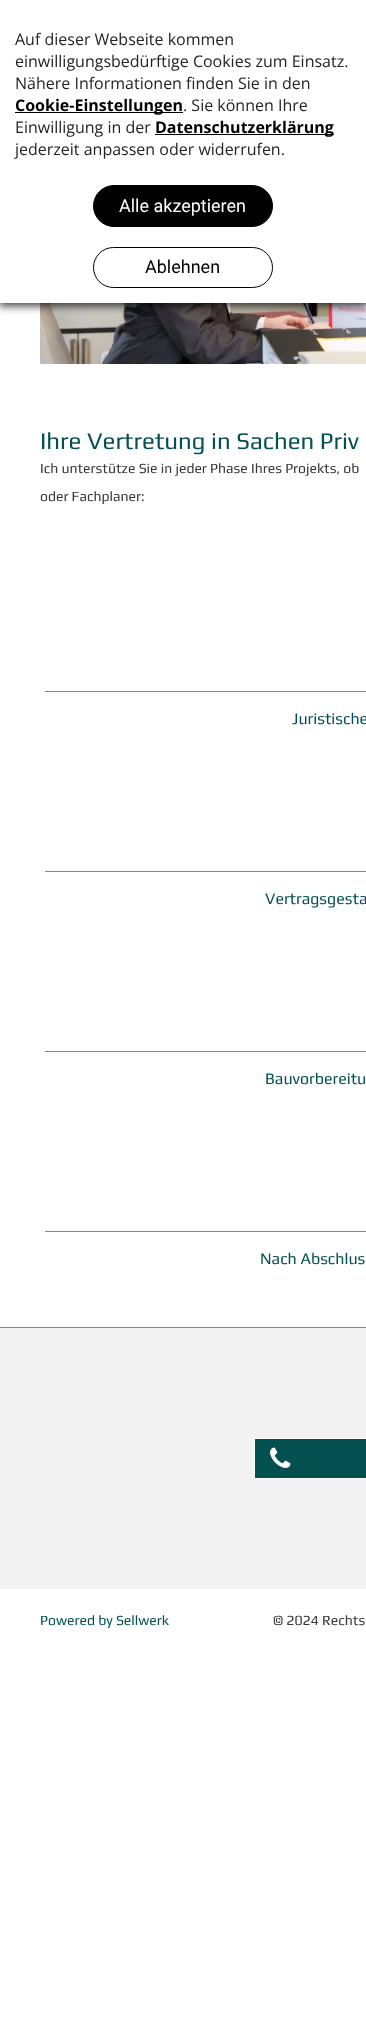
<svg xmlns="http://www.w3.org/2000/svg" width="366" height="2035">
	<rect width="100%" height="100%" fill="#FFFFFF" />
	<image x="40" y="303" width="326" height="61" href="assets/img1.png" />
	<rect x="-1" y="1" width="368" height="305" fill="#000000" fill-opacity="0.75" filter="blur(4.5px)" />
	<rect x="0" y="0" width="366" height="303" fill="#FFFFFF" />
	<g font-family="Open Sans" font-size="16" fill="#242424">
		<text x="15" y="45">Auf dieser Webseite kommen</text>
		<text x="15" y="67">einwilligungsbedürftige Cookies zum Einsatz.</text>
		<text x="15" y="89">Nähere Informationen finden Sie in den</text>
	</g>
	<rect x="15" y="112" width="168" height="1" fill="#000000" />
	<text x="15" y="111" font-family="Open Sans" font-size="16" font-weight="700" fill="#000000">Cookie-Einstellungen</text>
	<g font-family="Open Sans" font-size="16" fill="#242424">
		<text x="183" y="111">. Sie können Ihre</text>
		<text x="15" y="133">Einwilligung in der</text>
	</g>
	<rect x="155" y="134" width="179" height="1" fill="#000000" />
	<text x="155" y="133" font-family="Open Sans" font-size="16" font-weight="700" fill="#000000">Datenschutzerklärung</text>
	<text x="15" y="155" font-family="Open Sans" font-size="16" fill="#242424">jederzeit anpassen oder widerrufen.</text>
	<rect x="93.5" y="185.5" width="179" height="41" rx="20.5" fill="#000000" stroke="#000000" />
	<text x="119" y="212" font-family="Roboto" font-size="18" fill="#FFFFFF">Alle akzeptieren</text>
	<rect x="93.5" y="247.5" width="179" height="40" rx="20" fill="none" stroke="#000000" />
	<text x="145" y="273" font-family="Roboto" font-size="18" fill="#000000">Ablehnen</text>
	<text x="40" y="449" font-family="Play" font-size="24" fill="#045050">Ihre Vertretung in Sachen Priv</text>
	<g font-family="Play" font-size="14" fill="#373736">
		<text x="40" y="473">Ich unterstütze Sie in jeder Phase Ihres Projekts, ob</text>
		<text x="40" y="501">oder Fachplaner:</text>
	</g>
	<rect x="45" y="691" width="321" height="1" fill="#878786" />
	<text x="292" y="724" font-family="Play" font-size="16" fill="#045050">Juristische</text>
	<rect x="45" y="871" width="321" height="1" fill="#878786" />
	<text x="265" y="904" font-family="Play" font-size="16" fill="#045050">Vertragsgesta</text>
	<rect x="45" y="1051" width="321" height="1" fill="#878786" />
	<text x="265" y="1084" font-family="Play" font-size="16" fill="#045050">Bauvorbereitu</text>
	<rect x="45" y="1231" width="321" height="1" fill="#878786" />
	<text x="260" y="1264" font-family="Play" font-size="16" fill="#045050">Nach Abschlus</text>
	<rect x="0" y="1327" width="366" height="1" fill="#878786" />
	<rect x="0" y="1328" width="366" height="261" fill="#F2F2F2" />
	<rect x="254.5" y="1438.5" width="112" height="40" fill="#045050" stroke="#FFFFFF" />
	<image x="270" y="1447" width="21" height="21" href="assets/img2.png" />
	<text x="40" y="1625" font-family="Play" font-size="14" fill="#045050">Powered by Sellwerk</text>
	<text x="273" y="1625" font-family="Play" font-size="14" fill="#373736">© 2024 Rechts</text>
</svg>
